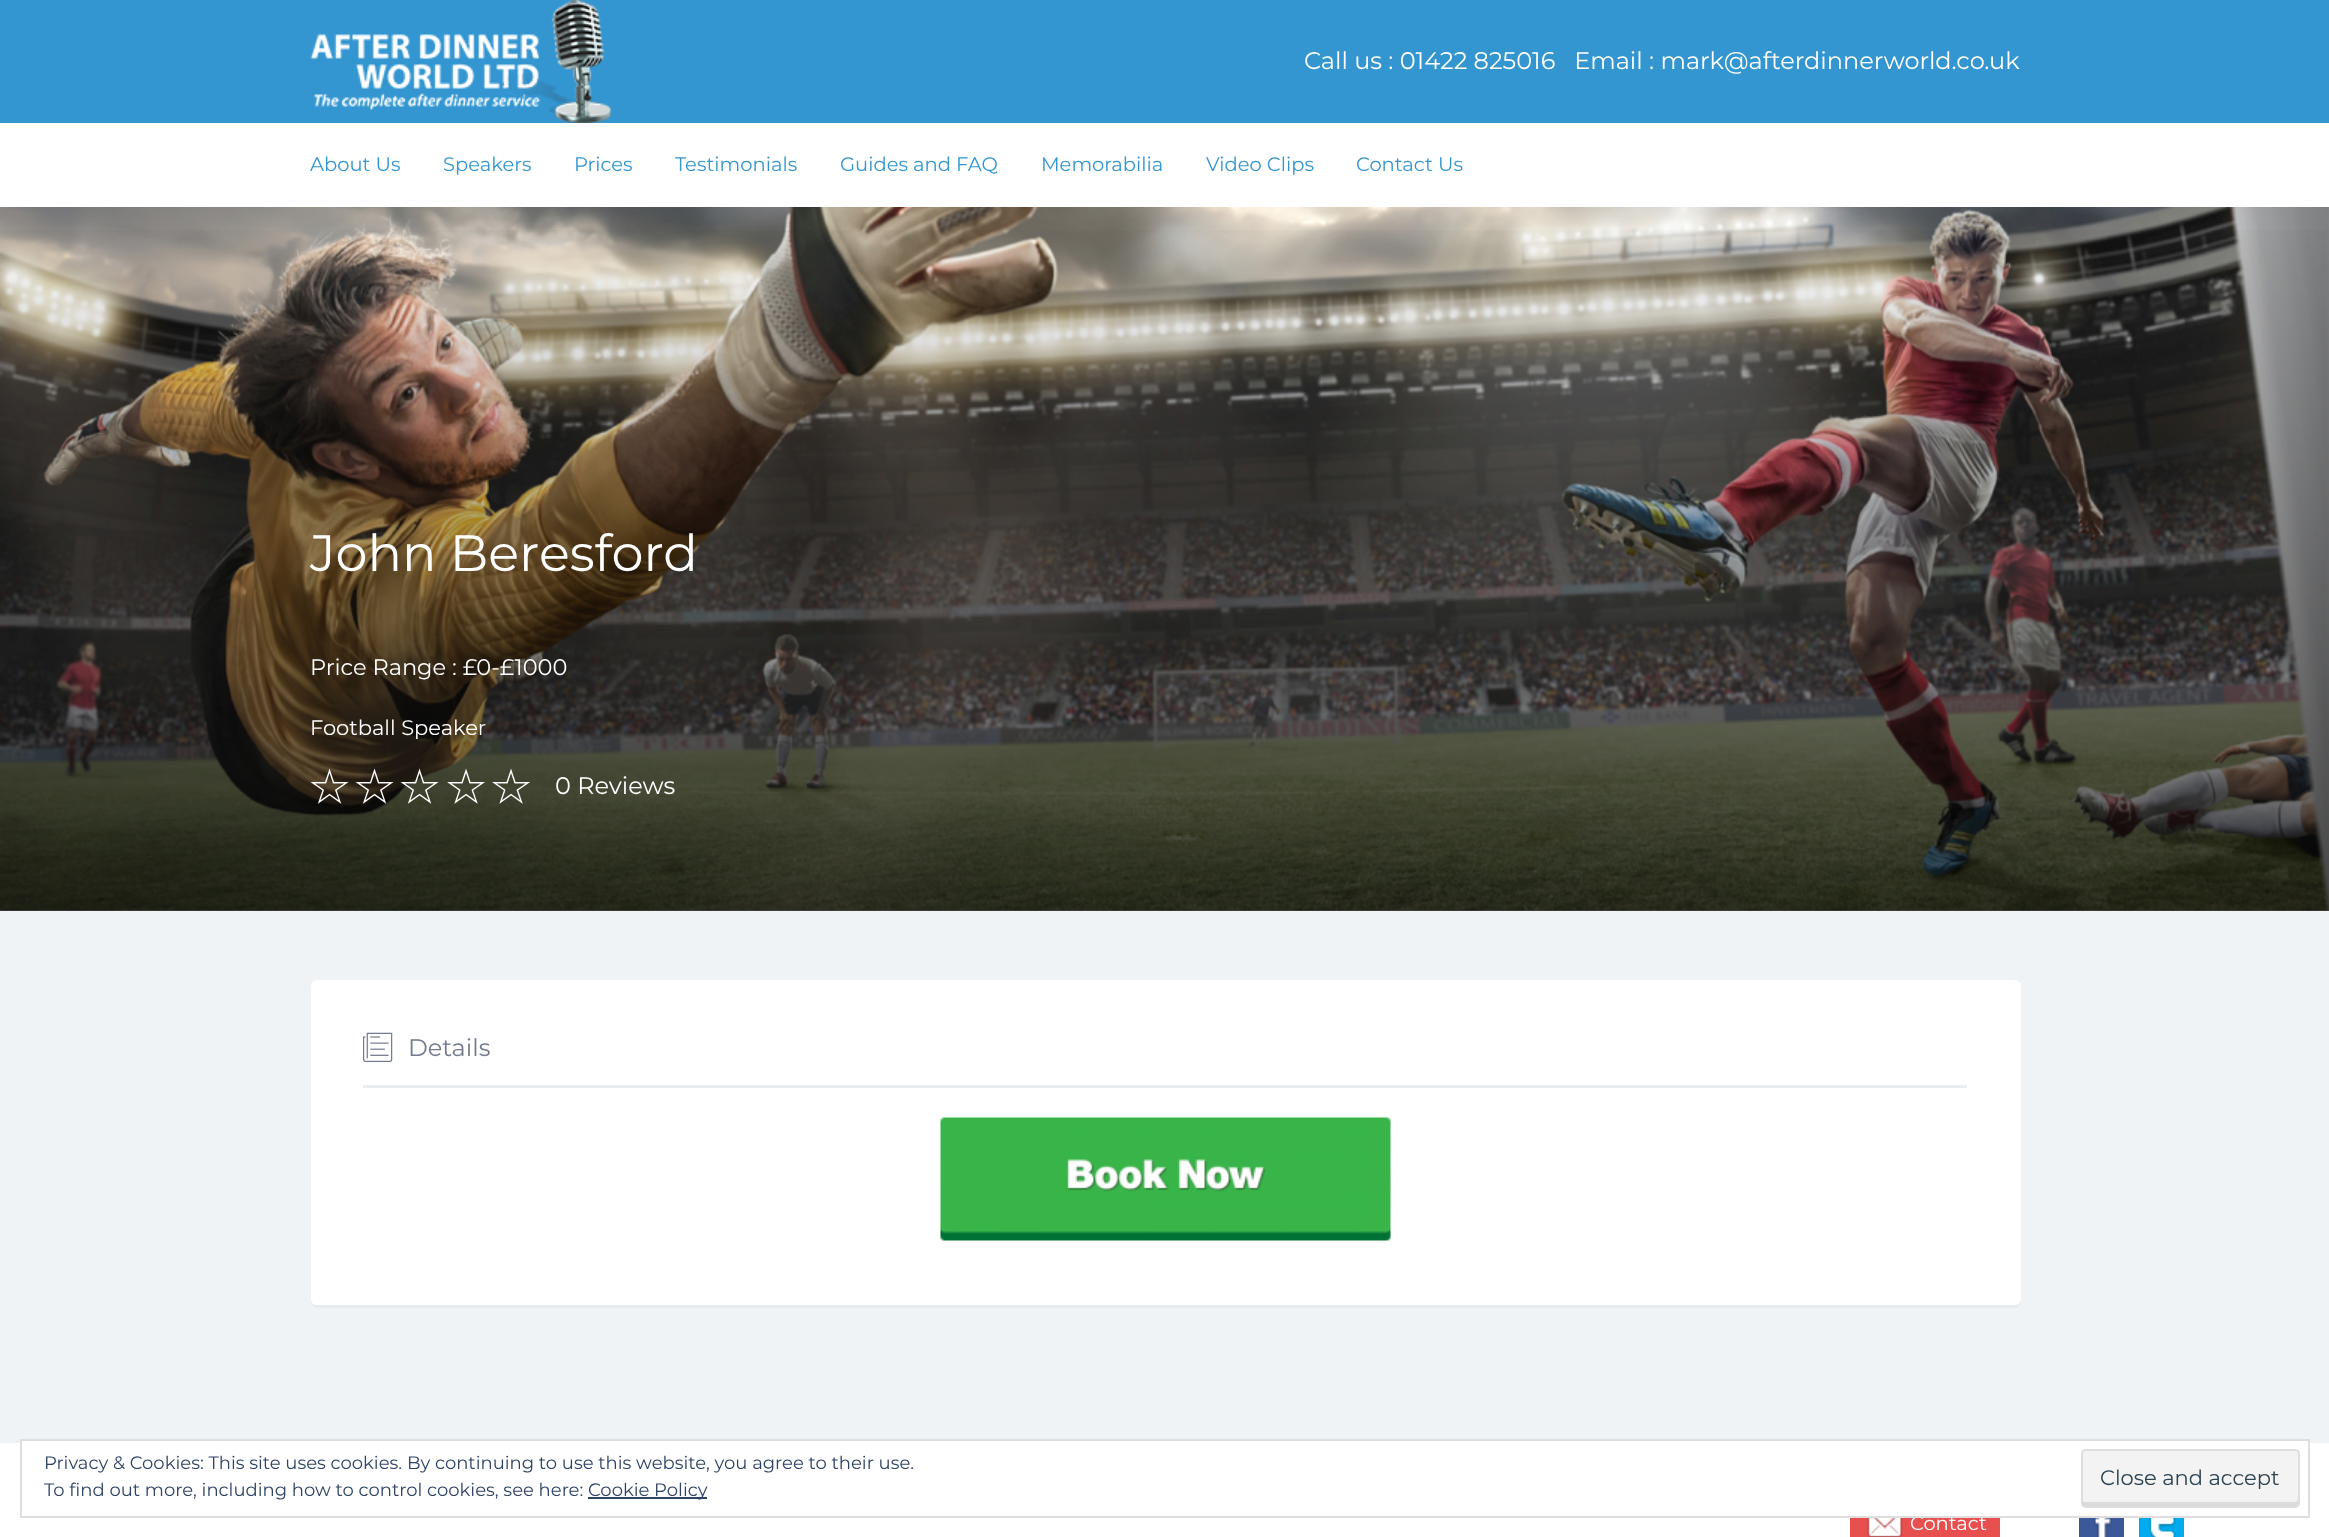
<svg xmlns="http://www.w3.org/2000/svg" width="2329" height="1537">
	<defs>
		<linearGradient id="g1" gradientUnits="userSpaceOnUse" x1="1165" y1="207" x2="1165" y2="911"><stop offset="0" stop-color="#000000" stop-opacity="0" /><stop offset="1" stop-color="#000000" stop-opacity="0.65" /></linearGradient>
	</defs>
	<rect width="100%" height="100%" fill="#F0F3F6" />
	<rect x="0" y="0" width="2329" height="123" fill="#3396D1" />
	<image x="310" y="0" width="301" height="123" href="assets/img1.png" />
	<text x="1304" y="69" font-family="Montserrat" font-size="24" fill="#FFFFFF" xml:space="preserve">Call us : 01422 825016   Email : mark@afterdinnerworld.co.uk</text>
	<rect x="0" y="123" width="2329" height="84" fill="#FFFFFF" />
	<g font-family="Montserrat" font-size="19.5" fill="#3396D1">
		<text x="310" y="171">About Us</text>
		<text x="443" y="171">Speakers</text>
		<text x="574" y="171">Prices</text>
		<text x="675" y="171">Testimonials</text>
		<text x="840" y="171">Guides and FAQ</text>
		<text x="1041" y="171">Memorabilia</text>
		<text x="1206" y="171">Video Clips</text>
		<text x="1356" y="171">Contact Us</text>
	</g>
	<rect x="0" y="910" width="2329" height="1" fill="#E6E9EC" />
	<image x="0" y="207" width="2329" height="704" href="assets/img2.png" />
	<rect x="0" y="230" width="2329" height="681" fill="url(#g1)" />
	<text x="310" y="571" font-family="Montserrat" font-size="51" fill="#FFFFFF">John Beresford</text>
	<text x="310" y="675" font-family="Montserrat" font-size="22.5" fill="#FFFFFF">Price Range : £0-£1000</text>
	<text x="310" y="735" font-family="Montserrat" font-size="21" fill="#FFFFFF">Football Speaker</text>
	<image x="310" y="768" width="39" height="36" href="assets/img3.png" />
	<image x="355" y="768" width="39" height="36" href="assets/img4.png" />
	<image x="400" y="768" width="39" height="36" href="assets/img5.png" />
	<image x="447" y="768" width="38" height="36" href="assets/img6.png" />
	<image x="492" y="768" width="38" height="36" href="assets/img7.png" />
	<text x="555" y="794" font-family="Montserrat" font-size="24" fill="#FFFFFF">0 Reviews</text>
	<path d="M311 1301V1302C311 1305 314 1308 317 1308H2015C2018 1308 2021 1305 2021 1302V989L2020 987V1299C2020 1302 2018 1305 2014 1305H316C314 1305 312 1304 311 1301Z" fill="#E9ECEF" />
	<rect x="311" y="980" width="1710" height="325" rx="6" fill="#FFFFFF" />
	<rect x="363" y="1085" width="1604" height="3" fill="#E9EDF2" />
	<image x="363" y="1032" width="30" height="30" href="assets/img8.png" />
	<text x="408" y="1056" font-family="Montserrat" font-size="24" fill="#717A8F">Details</text>
	<image x="940" y="1117" width="451" height="124" href="assets/img9.png" />
	<rect x="0" y="1443" width="2329" height="94" fill="#FFFFFF" />
	<rect x="22" y="1441" width="2286" height="2" fill="#FFFFFF" />
	<rect x="1850" y="1518" width="150" height="19" fill="#E85050" />
	<text x="1910" y="1530" font-family="Montserrat" font-size="19.5" fill="#FFFFFF">Contact</text>
	<rect x="21" y="1440" width="2288" height="77" fill="none" stroke="#DEDEDE" stroke-width="2" />
	<g font-family="Montserrat" font-size="18" fill="#2E4467">
		<text x="44" y="1469">Privacy &amp; Cookies: This site uses cookies. By continuing to use this website, you agree to their use.</text>
		<text x="44" y="1496">To find out more, including how to control cookies, see here:</text>
	</g>
	<rect x="588" y="1497" width="119" height="2" fill="#2E4467" />
	<text x="588" y="1496" font-family="Montserrat" font-size="18" fill="#2E4467">Cookie Policy</text>
	<rect x="2081" y="1449" width="219" height="59" rx="5" fill="#F3F3F3" />
	<path d="M2082 1498V1503C2082 1505 2083 1506 2085 1506H2295C2297 1506 2298 1505 2298 1503V1498C2298 1500 2297 1502 2295 1502H2085C2083 1502 2082 1500 2082 1498Z" fill="#DBDBDB" />
	<rect x="2082" y="1450" width="217" height="57" rx="4" fill="none" stroke="#DEDEDE" stroke-width="2" />
	<text x="2100" y="1485" font-family="Montserrat" font-size="21" fill="#2E4453">Close and accept</text>
	<image x="1867" y="1518" width="36" height="19" href="assets/img10.png" />
	<rect x="2079" y="1518" width="45" height="19" fill="#3B5998" />
	<image x="2094" y="1518" width="18" height="19" href="assets/img11.png" />
	<rect x="2139" y="1518" width="45" height="19" fill="#00ACED" />
	<image x="2149" y="1518" width="27" height="19" href="assets/img12.png" />
</svg>
